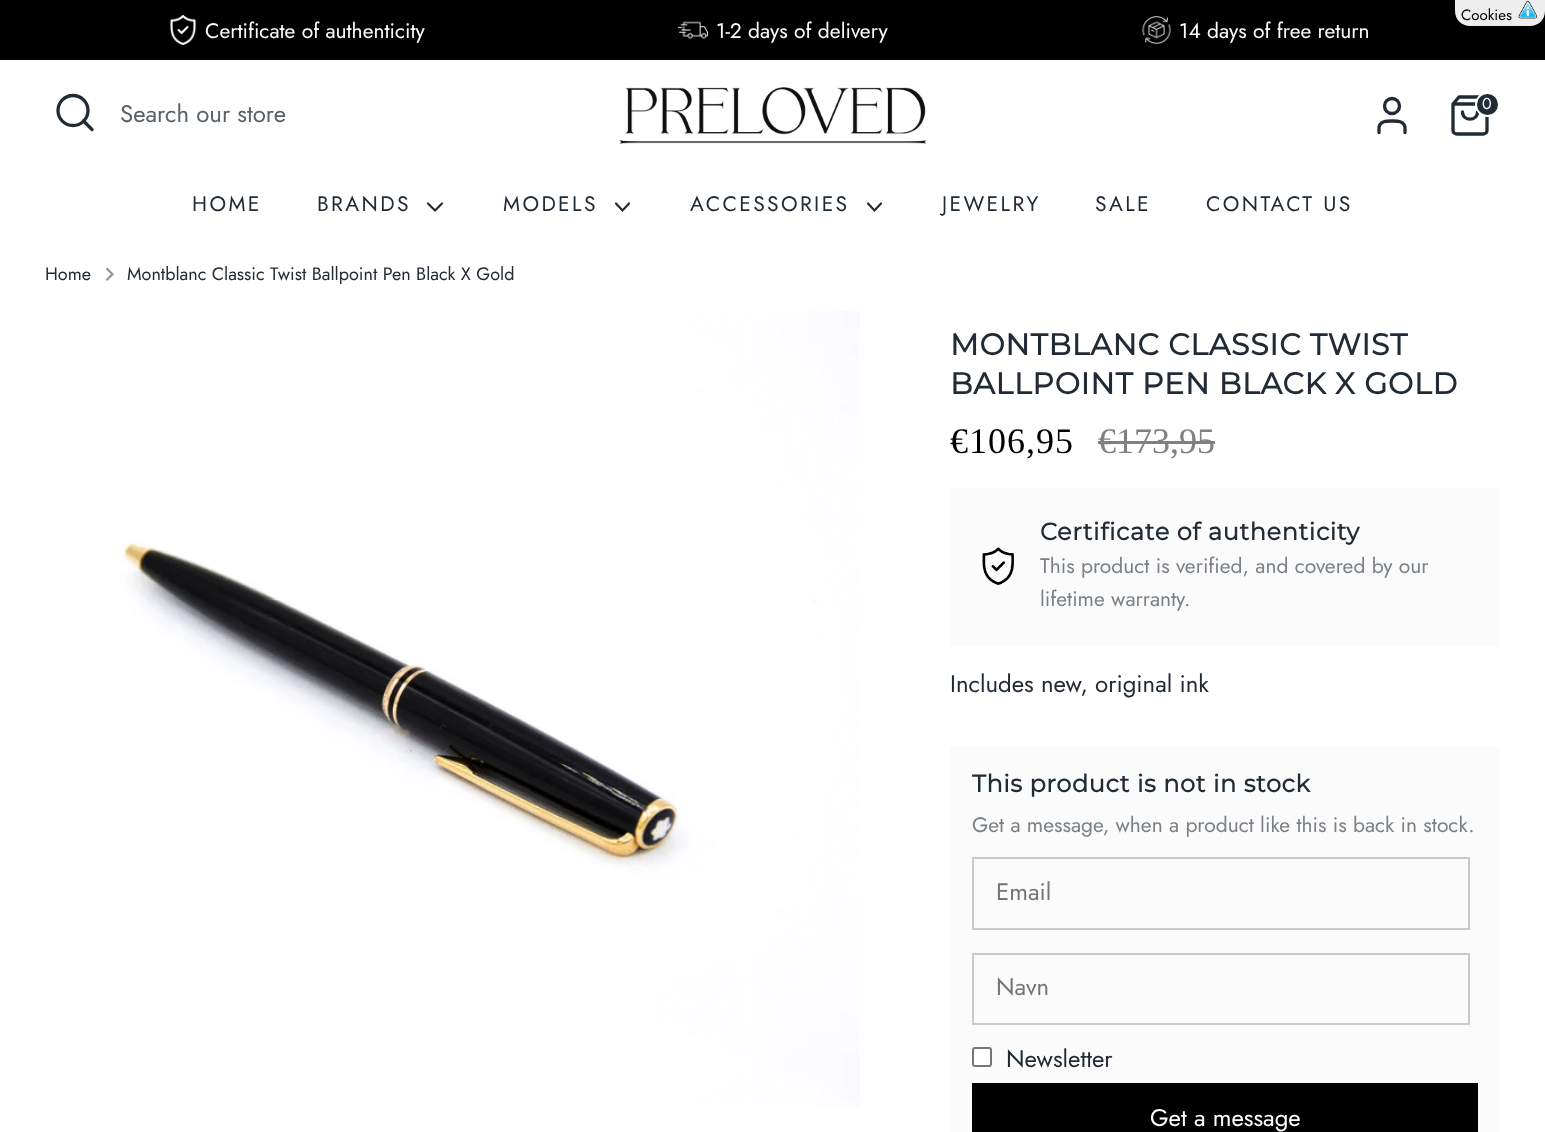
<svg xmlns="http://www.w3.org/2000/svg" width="1545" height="1132">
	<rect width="100%" height="100%" fill="#FFFFFF" />
	<rect x="0" y="0" width="1545" height="60" fill="#000000" />
	<path d="M1455 0H1545V11C1545 19.5 1538.5 26 1530 26H1470C1461.5 26 1455 19.5 1455 11Z" fill="#EEEEEE" />
	<text x="1461" y="20" font-family="Jost" font-size="15" fill="#000000">Cookies</text>
	<image x="1518" y="0" width="20" height="19" href="assets/img1.png" />
	<image x="169" y="15" width="28" height="30" href="assets/img2.png" />
	<text x="205" y="38" font-family="Jost" font-size="21" fill="#FFFFFF">Certificate of authenticity</text>
	<image x="678" y="21" width="30" height="18" href="assets/img3.png" />
	<text x="716" y="38" font-family="Jost" font-size="21" fill="#FFFFFF">1-2 days of delivery</text>
	<image x="1142" y="16" width="29" height="29" href="assets/img4.png" />
	<text x="1179" y="38" font-family="Jost" font-size="21" fill="#FFFFFF">14 days of free return</text>
	<circle cx="73" cy="110.5" r="15" fill="none" stroke="#212B36" stroke-width="3.3" />
	<path d="M92 129.5L83.5 121" fill="none" stroke="#212B36" stroke-width="3.3" stroke-linecap="round" stroke-linejoin="round" />
	<text x="120" y="122" font-family="Jost" font-size="24" fill="#596068">Search our store</text>
	<image x="619" y="87" width="308" height="57" href="assets/img5.png" />
	<path d="M1405 132.5V127C1403.5 120.5 1397 121 1392 121C1387 121 1380.5 120.5 1379 127V132.5" fill="none" stroke="#212B36" stroke-width="3.3" stroke-linecap="round" stroke-linejoin="round" />
	<circle cx="1392" cy="106" r="7.5" fill="none" stroke="#212B36" stroke-width="3.3" />
	<path d="M1459 97L1453 104V130.5C1453 132.5 1455 134 1457 134H1483C1485 134 1487 132.5 1487 130.5V104L1481 97ZM1453 104H1487M1477.5 112C1477.5 121.5 1462.5 121.5 1462.5 112" fill="none" stroke="#212B36" stroke-width="3.3" stroke-linecap="round" stroke-linejoin="round" />
	<circle cx="1487.5" cy="104.5" r="11.5" fill="#212B36" stroke="#FFFFFF" stroke-width="2" />
	<text x="1482" y="109" font-family="Jost" font-size="16" fill="#FFFFFF">0</text>
	<g font-family="Jost" font-size="21" letter-spacing="2.4" fill="#212B36">
		<text x="192" y="211">HOME</text>
		<text x="317" y="211">BRANDS</text>
	</g>
	<path d="M428 203.5L435 210.5L442 203.5" fill="none" stroke="#212B36" stroke-width="2.2" stroke-linecap="round" />
	<text x="503" y="211" font-family="Jost" font-size="21" letter-spacing="2.4" fill="#212B36">MODELS</text>
	<path d="M616 203.5L622.5 210.5L629 203.5" fill="none" stroke="#212B36" stroke-width="2.2" stroke-linecap="round" />
	<text x="690" y="211" font-family="Jost" font-size="21" letter-spacing="2.4" fill="#212B36">ACCESSORIES</text>
	<path d="M868 203.5L874.5 210.5L881 203.5" fill="none" stroke="#212B36" stroke-width="2.2" stroke-linecap="round" />
	<g font-family="Jost" font-size="21" letter-spacing="2.4" fill="#212B36">
		<text x="942" y="211">JEWELRY</text>
		<text x="1095" y="211">SALE</text>
		<text x="1206" y="211">CONTACT US</text>
	</g>
	<text x="45" y="280" font-family="Jost" font-size="18" fill="#212B36">Home</text>
	<image x="105" y="267" width="9" height="14" href="assets/img6.png" />
	<text x="127" y="280" font-family="Jost" font-size="18" fill="#212B36">Montblanc Classic Twist Ballpoint Pen Black X Gold</text>
	<image x="119" y="311" width="741" height="796" href="assets/img7.png" />
	<g font-family="Montserrat" font-size="30" font-weight="700" letter-spacing="0.75" fill="#212B36">
		<text x="950" y="355">MONTBLANC CLASSIC TWIST</text>
		<text x="950" y="394">BALLPOINT PEN BLACK X GOLD</text>
	</g>
	<text x="950" y="453" font-family="Liberation Serif" font-size="36" letter-spacing="1" fill="#000000">€106,95</text>
	<text x="1098" y="453" font-family="Liberation Serif" font-size="36" fill="#808080">€173,95</text>
	<rect x="1098" y="441" width="117" height="3" fill="#808080" />
	<rect x="950" y="488" width="550" height="159" fill="#FBFBFB" />
	<image x="982" y="547" width="32" height="38" href="assets/img8.png" />
	<text x="1040" y="540" font-family="Montserrat" font-size="24" font-weight="700" letter-spacing="0.6" fill="#212B36">Certificate of authenticity</text>
	<g font-family="Jost" font-size="21" fill="#7A8086">
		<text x="1040" y="573">This product is verified, and covered by our</text>
		<text x="1040" y="606">lifetime warranty.</text>
	</g>
	<text x="950" y="692" font-family="Jost" font-size="24" fill="#212B36">Includes new, original ink</text>
	<rect x="950" y="747" width="550" height="385" fill="#FBFBFB" />
	<text x="972" y="792" font-family="Montserrat" font-size="24" font-weight="700" letter-spacing="0.6" fill="#212B36">This product is not in stock</text>
	<text x="972" y="832" font-family="Jost" font-size="21" fill="#7A8086">Get a message, when a product like this is back in stock.</text>
	<rect x="973" y="858" width="496" height="71" fill="none" stroke="#C8CACD" stroke-width="2" />
	<text x="996" y="900" font-family="Jost" font-size="24" fill="#757575">Email</text>
	<rect x="973" y="954" width="496" height="70" fill="none" stroke="#C8CACD" stroke-width="2" />
	<text x="996" y="995" font-family="Jost" font-size="24" fill="#757575">Navn</text>
	<rect x="973" y="1048" width="18" height="18" rx="2" fill="#FFFFFF" stroke="#767676" stroke-width="2" />
	<text x="1006" y="1067" font-family="Jost" font-size="24" fill="#212B36">Newsletter</text>
	<rect x="973" y="1084" width="504" height="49" fill="none" stroke="#000000" stroke-width="2" />
	<rect x="974" y="1085" width="502" height="47" fill="#000000" />
	<text x="1150" y="1126" font-family="Jost" font-size="24" fill="#FFFFFF">Get a message</text>
</svg>
